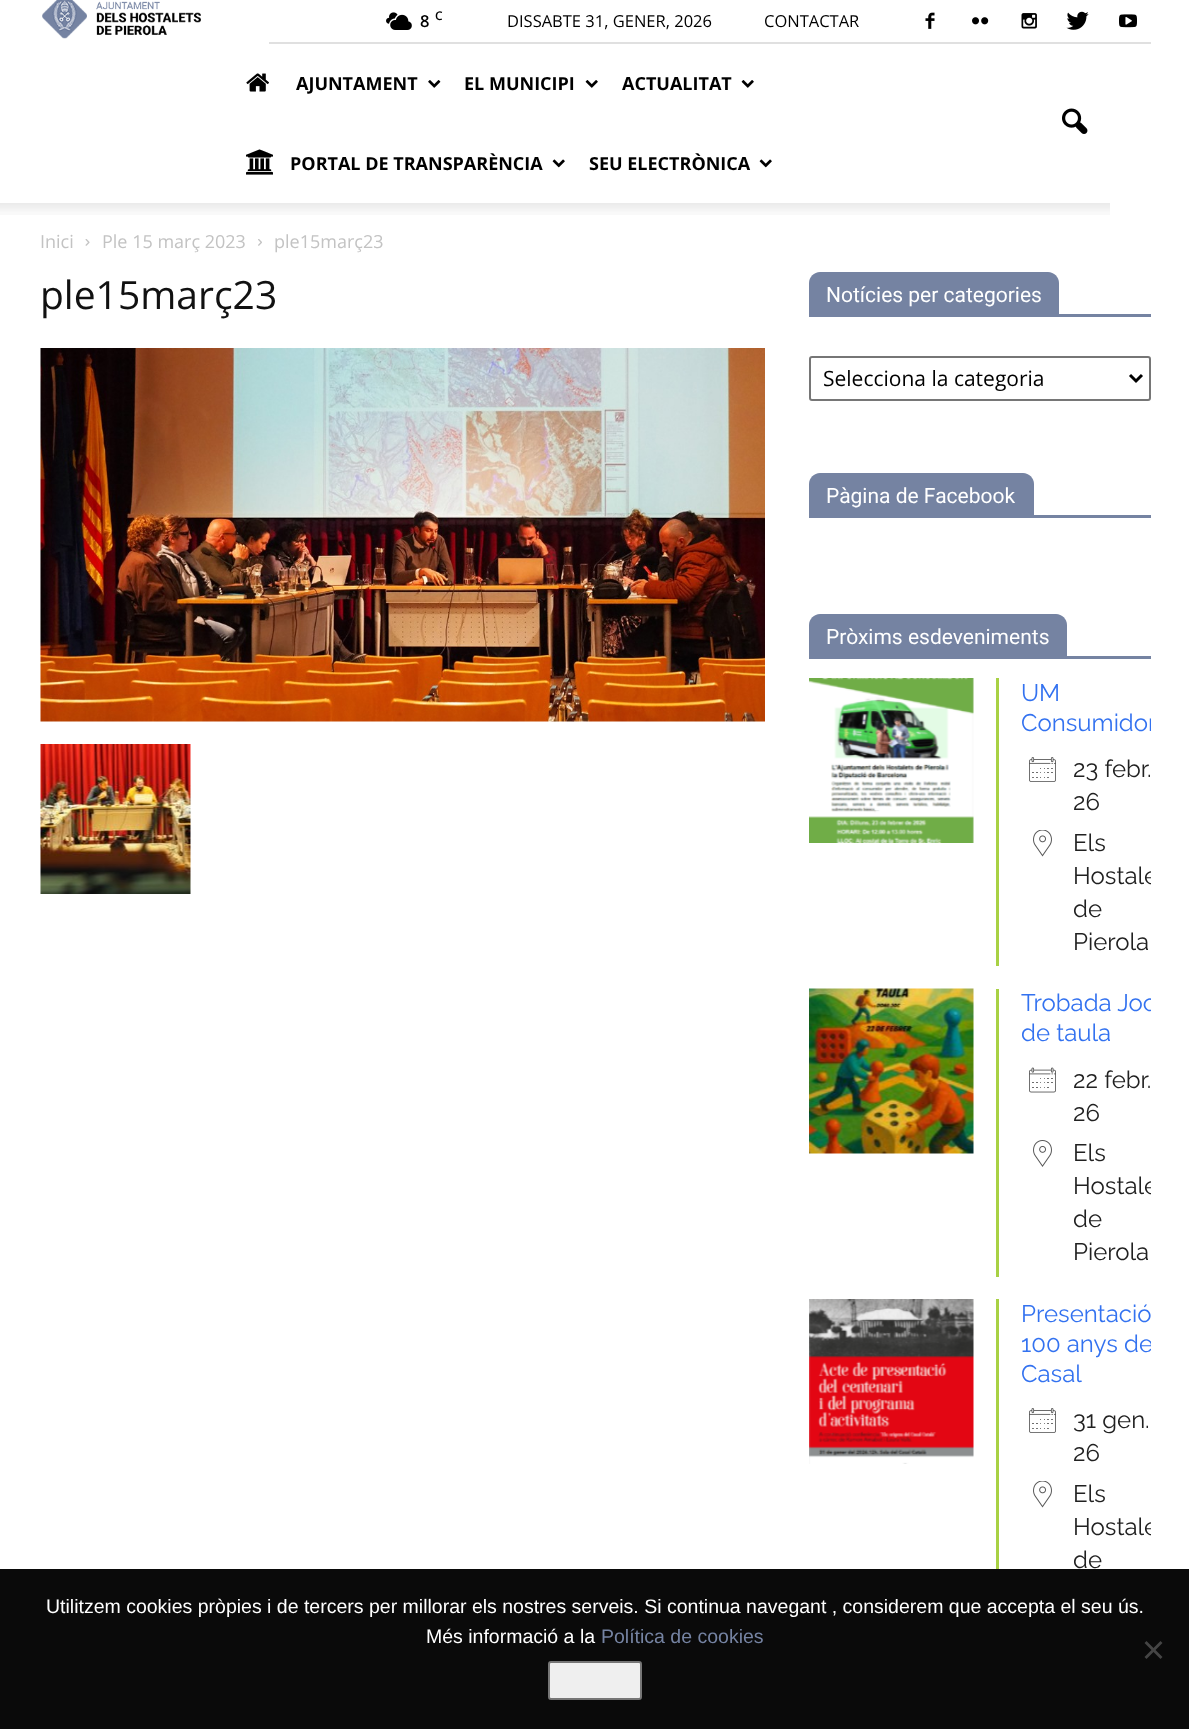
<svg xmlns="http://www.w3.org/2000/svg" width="1189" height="1729">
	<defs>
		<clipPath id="clip1"><rect x="809" y="614" width="342" height="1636" /></clipPath>
	</defs>
	<rect width="100%" height="100%" fill="#FFFFFF" />
	<image x="42" y="0" width="159" height="39" href="assets/img1.png" />
	<rect x="269" y="42" width="882" height="2" fill="#E0E0E0" />
	<image x="386" y="12" width="26" height="18" href="assets/img2.png" />
	<text x="420" y="27" font-family="Open Sans" font-size="16.5" font-weight="600" fill="#000000">8</text>
	<text x="435" y="20" font-family="Open Sans" font-size="12" font-weight="600" fill="#000000">C</text>
	<g font-family="Open Sans" font-size="16.5" fill="#000000">
		<text x="507" y="27">DISSABTE 31, GENER, 2026</text>
		<text x="764" y="27">CONTACTAR</text>
	</g>
	<image x="925" y="12" width="10" height="17" href="assets/img3.png" />
	<image x="972" y="17" width="17" height="8" href="assets/img4.png" />
	<image x="1021" y="13" width="16" height="16" href="assets/img5.png" />
	<image x="1066" y="11" width="23" height="19" href="assets/img6.png" />
	<image x="1119" y="14" width="18" height="14" href="assets/img7.png" />
	<image x="246" y="73" width="23" height="19" href="assets/img8.png" />
	<text x="296" y="90" font-family="Open Sans" font-size="18" font-weight="700" fill="#000000">AJUNTAMENT</text>
	<image x="428" y="80" width="13" height="8" href="assets/img9.png" />
	<text x="464" y="90" font-family="Open Sans" font-size="18" font-weight="700" fill="#000000">EL MUNICIPI</text>
	<image x="585" y="80" width="13" height="8" href="assets/img10.png" />
	<text x="622" y="90" font-family="Open Sans" font-size="18" font-weight="700" fill="#000000">ACTUALITAT</text>
	<image x="741" y="80" width="13" height="8" href="assets/img10.png" />
	<image x="246" y="149" width="27" height="26" href="assets/img11.png" />
	<text x="290" y="170" font-family="Open Sans" font-size="18" font-weight="700" fill="#000000">PORTAL DE TRANSPARÈNCIA</text>
	<image x="552" y="159" width="13" height="9" href="assets/img12.png" />
	<text x="589" y="170" font-family="Open Sans" font-size="18" font-weight="700" fill="#000000">SEU ELECTRÒNICA</text>
	<image x="759" y="159" width="13" height="9" href="assets/img12.png" />
	<image x="1062" y="108" width="26" height="26" href="assets/img13.png" />
	<image x="0" y="203" width="1110" height="12" href="assets/img14.png" />
	<text x="40" y="248" font-family="Open Sans" font-size="18" fill="#C3C3C3">Inici</text>
	<image x="85" y="239" width="5" height="7" href="assets/img15.png" />
	<text x="102" y="248" font-family="Open Sans" font-size="18" fill="#C3C3C3">Ple 15 març 2023</text>
	<image x="258" y="239" width="4" height="7" href="assets/img16.png" />
	<text x="274" y="248" font-family="Open Sans" font-size="18" fill="#C3C3C3">ple15març23</text>
	<text x="40" y="309" font-family="Open Sans" font-size="39" fill="#111111">ple15març23</text>
	<image x="40" y="348" width="725" height="374" href="assets/img17.png" />
	<image x="40" y="744" width="151" height="150" href="assets/img18.png" />
	<rect x="809" y="314" width="342" height="3" fill="#7583A2" />
	<path d="M820 272H1048C1054 272 1059 277 1059 283V314H809V283C809 277 814 272 820 272Z" fill="#7583A2" />
	<text x="826" y="302" font-family="Roboto" font-size="21" fill="#FFFFFF">Notícies per categories</text>
	<rect x="810" y="357" width="340" height="43" rx="2" fill="none" stroke="#767676" stroke-width="2" />
	<path d="M1130 375L1136 381L1142 375" fill="none" stroke="#000000" stroke-width="3" />
	<text x="823" y="386" font-family="Open Sans" font-size="21" fill="#000000">Selecciona la categoria</text>
	<rect x="809" y="515" width="342" height="3" fill="#7583A2" />
	<path d="M820 473H1023C1029 473 1034 478 1034 484V515H809V484C809 478 814 473 820 473Z" fill="#7583A2" />
	<text x="826" y="503" font-family="Roboto" font-size="21" fill="#FFFFFF">Pàgina de Facebook</text>
	<rect x="809" y="656" width="342" height="3" fill="#7583A2" />
	<path d="M820 614H1056C1062 614 1067 619 1067 625V656H809V625C809 619 814 614 820 614Z" fill="#7583A2" />
	<text x="826" y="644" font-family="Roboto" font-size="21" fill="#FFFFFF">Pròxims esdeveniments</text>
	<image x="809" y="678" width="165" height="165" href="assets/img19.png" />
	<rect x="996" y="678" width="3" height="288" fill="#A8D144" />
	<text x="1021" y="701" font-family="Raleway" font-size="24" fill="#3372F0">UM</text>
	<g clip-path="url(#clip1)">
		<text x="1021" y="731" font-family="Raleway" font-size="24" fill="#3372F0">Consumidor</text>
	</g>
	<image x="1029" y="757" width="27" height="25" href="assets/img20.png" />
	<g font-family="Raleway" font-size="24" fill="#212121">
		<text x="1073" y="777">23 febr.</text>
		<text x="1073" y="810">26</text>
	</g>
	<image x="1033" y="830" width="19" height="27" href="assets/img21.png" />
	<text x="1073" y="851" font-family="Raleway" font-size="24" fill="#212121">Els</text>
	<g clip-path="url(#clip1)">
		<text x="1073" y="884" font-family="Raleway" font-size="24" fill="#212121">Hostale</text>
	</g>
	<g font-family="Raleway" font-size="24" fill="#212121">
		<text x="1073" y="917">de</text>
		<text x="1073" y="950">Pierola</text>
	</g>
	<image x="809" y="988" width="165" height="166" href="assets/img22.png" />
	<rect x="996" y="989" width="3" height="288" fill="#A8D144" />
	<g clip-path="url(#clip1)">
		<text x="1021" y="1011" font-family="Raleway" font-size="24" fill="#3372F0">Trobada Joc</text>
	</g>
	<text x="1021" y="1041" font-family="Raleway" font-size="24" fill="#3372F0">de taula</text>
	<image x="1029" y="1067" width="27" height="26" href="assets/img23.png" />
	<g font-family="Raleway" font-size="24" fill="#212121">
		<text x="1073" y="1088">22 febr.</text>
		<text x="1073" y="1121">26</text>
	</g>
	<image x="1033" y="1140" width="19" height="27" href="assets/img24.png" />
	<text x="1073" y="1161" font-family="Raleway" font-size="24" fill="#212121">Els</text>
	<g clip-path="url(#clip1)">
		<text x="1073" y="1194" font-family="Raleway" font-size="24" fill="#212121">Hostale</text>
	</g>
	<g font-family="Raleway" font-size="24" fill="#212121">
		<text x="1073" y="1227">de</text>
		<text x="1073" y="1260">Pierola</text>
	</g>
	<image x="809" y="1299" width="165" height="165" href="assets/img25.png" />
	<rect x="996" y="1299" width="3" height="270" fill="#A8D144" />
	<text x="1021" y="1322" font-family="Raleway" font-size="24" fill="#3372F0">Presentació</text>
	<g clip-path="url(#clip1)">
		<text x="1021" y="1352" font-family="Raleway" font-size="24" fill="#3372F0">100 anys de</text>
	</g>
	<text x="1021" y="1382" font-family="Raleway" font-size="24" fill="#3372F0">Casal</text>
	<image x="1029" y="1408" width="27" height="25" href="assets/img20.png" />
	<g font-family="Raleway" font-size="24" fill="#212121">
		<text x="1073" y="1428">31 gen.</text>
		<text x="1073" y="1461">26</text>
	</g>
	<image x="1033" y="1481" width="19" height="27" href="assets/img21.png" />
	<text x="1073" y="1502" font-family="Raleway" font-size="24" fill="#212121">Els</text>
	<g clip-path="url(#clip1)">
		<text x="1073" y="1535" font-family="Raleway" font-size="24" fill="#212121">Hostale</text>
	</g>
	<text x="1073" y="1568" font-family="Raleway" font-size="24" fill="#212121">de</text>
	<rect x="0" y="1569" width="1189" height="160" fill="#0A0A0A" />
	<g font-family="Liberation Sans" font-size="19.5" fill="#FFFFFF">
		<text x="46" y="1613">Utilitzem cookies pròpies i de tercers per millorar els nostres serveis. Si continua navegant , considerem que accepta el seu ús.</text>
		<text x="426" y="1643">Més informació a la</text>
	</g>
	<text x="601" y="1643" font-family="Liberation Sans" font-size="19.5" fill="#7583A2">Política de cookies</text>
	<path d="M1160.5 1641L1162.5 1643L1146.5 1659L1144.5 1657Z" fill="#454545" />
	<path d="M1144.5 1643L1146.5 1641L1162.5 1657L1160.5 1659Z" fill="#454545" />
	<rect x="549" y="1662" width="92" height="37" rx="2" fill="#EFEFEF" stroke="#767676" stroke-width="2" />
</svg>
